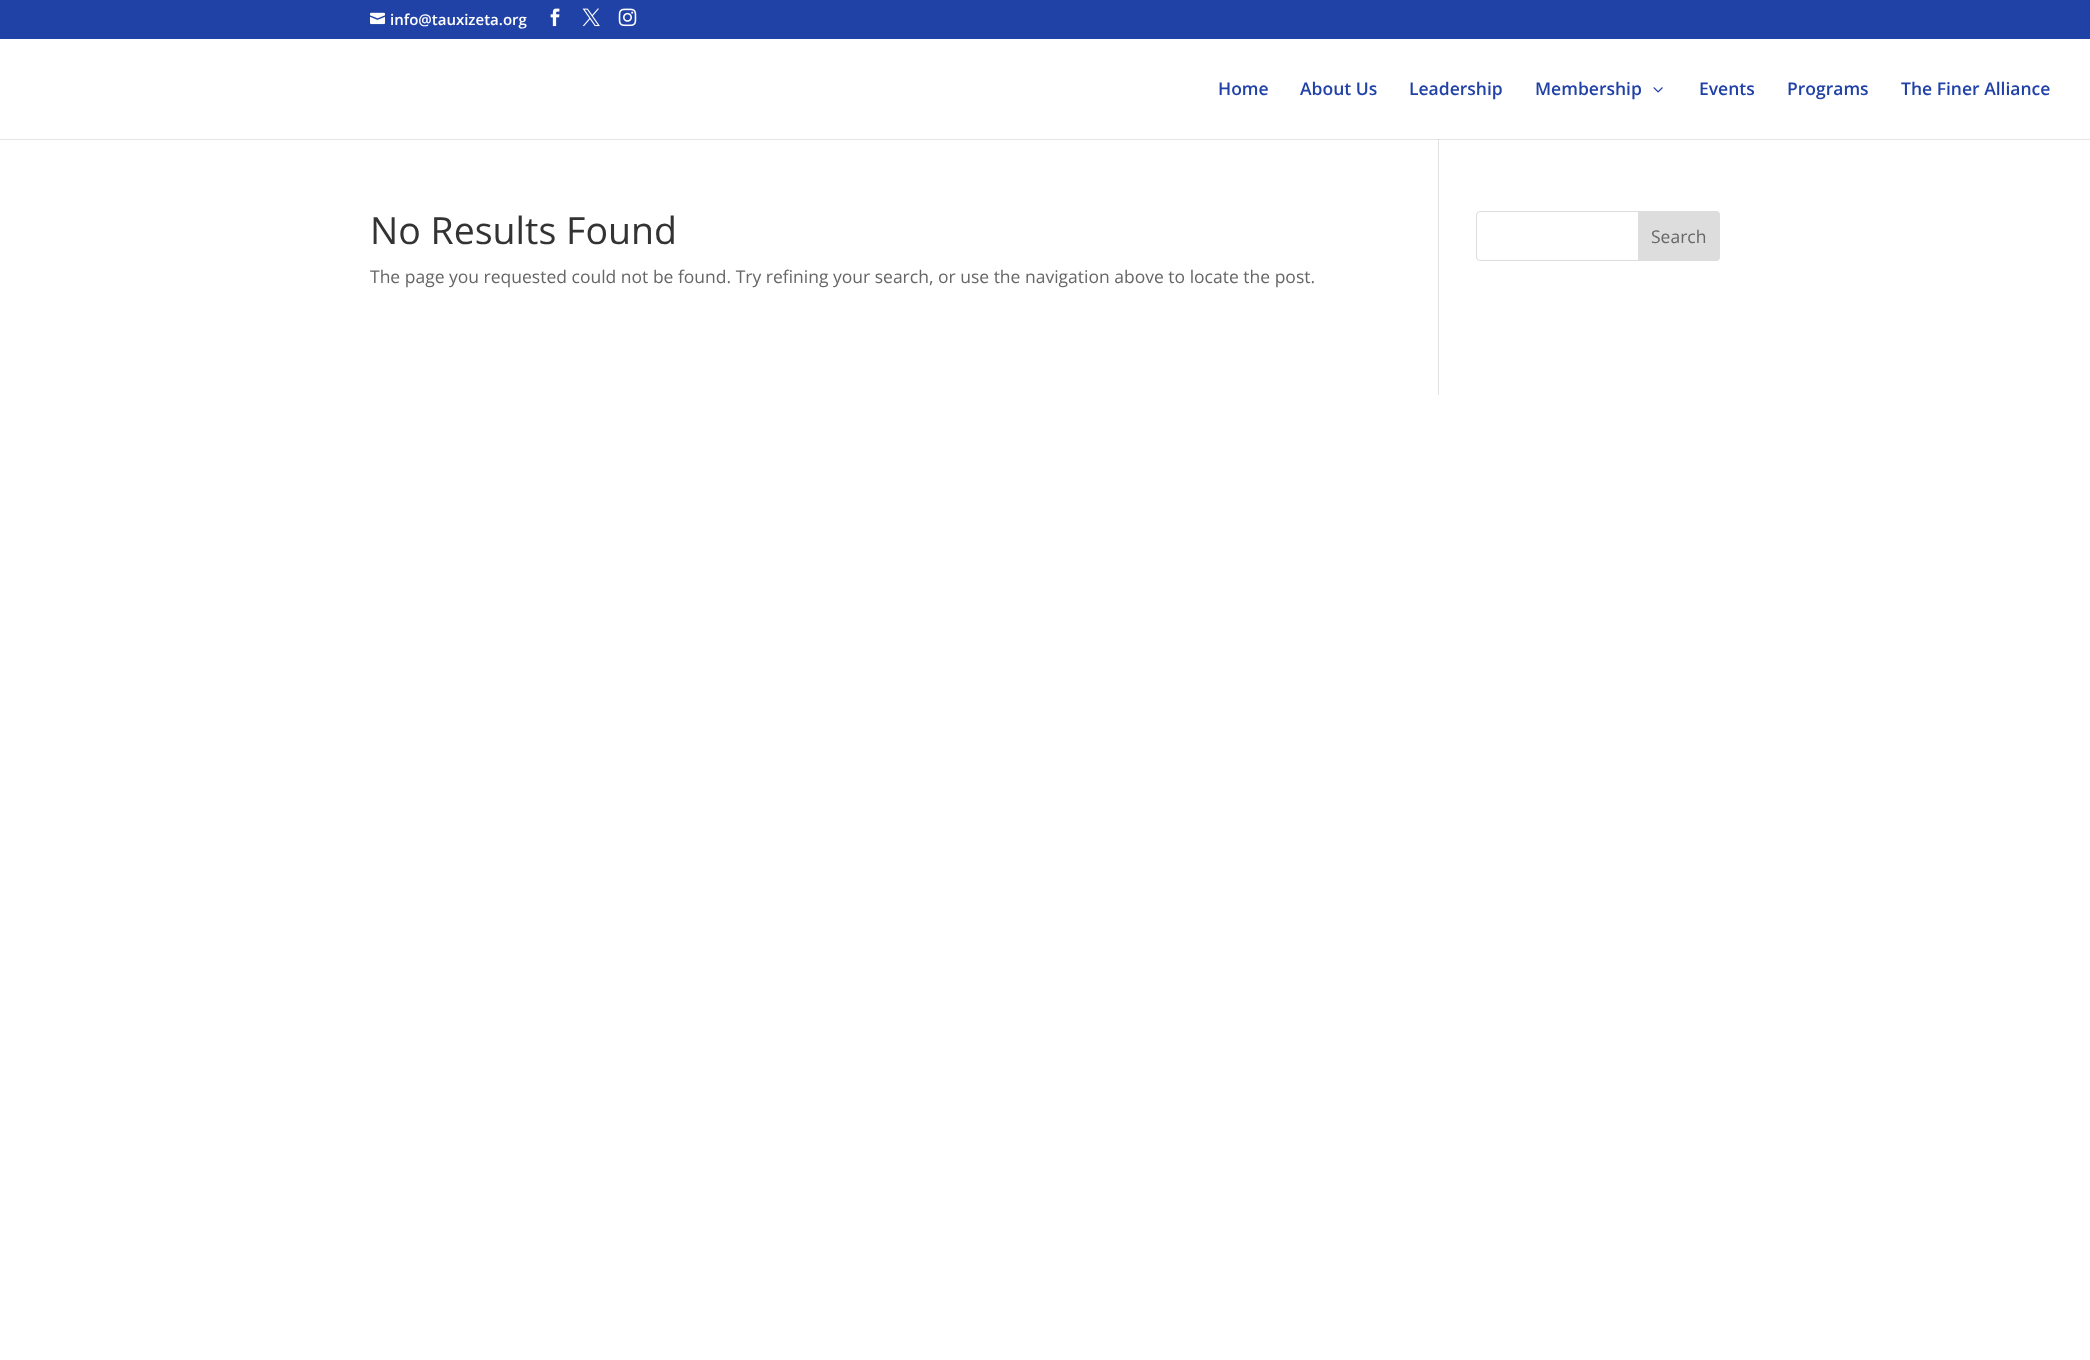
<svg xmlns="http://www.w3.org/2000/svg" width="2090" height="1360">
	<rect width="100%" height="100%" fill="#FFFFFF" />
	<rect x="0" y="139" width="2090" height="1" fill="#E6E6E6" />
	<rect x="0" y="0" width="2090" height="39" fill="#2041A5" />
	<image x="370" y="12" width="15" height="13" href="assets/img1.png" />
	<text x="390" y="25" font-family="Open Sans" font-size="15" font-weight="600" fill="#FFFFFF">info@tauxizeta.org</text>
	<image x="550" y="8" width="10" height="19" href="assets/img2.png" />
	<image x="582" y="8" width="18" height="19" href="assets/img3.png" />
	<image x="618" y="8" width="19" height="19" href="assets/img4.png" />
	<g font-family="Open Sans" font-size="17.5" font-weight="600" fill="#2041A5">
		<text x="1218" y="95">Home</text>
		<text x="1300" y="95">About Us</text>
		<text x="1409" y="95">Leadership</text>
		<text x="1535" y="95">Membership</text>
	</g>
	<image x="1653" y="87" width="10" height="6" href="assets/img5.png" />
	<g font-family="Open Sans" font-size="17.5" font-weight="600" fill="#2041A5">
		<text x="1699" y="95">Events</text>
		<text x="1787" y="95">Programs</text>
		<text x="1901" y="95">The Finer Alliance</text>
	</g>
	<rect x="1438" y="139" width="1" height="256" fill="#E2E2E2" />
	<rect x="1438" y="139" width="1" height="1" fill="#CBCBCB" />
	<text x="370" y="244" font-family="Open Sans" font-size="37.5" fill="#333333">No Results Found</text>
	<text x="370" y="283" font-family="Open Sans" font-size="17.5" fill="#666666">The page you requested could not be found. Try refining your search, or use the navigation above to locate the post.</text>
	<rect x="1476.5" y="211.5" width="243" height="49" rx="3.5" fill="none" stroke="#DDDDDD" />
	<path d="M1638.5 211.5H1716C1718 211.5 1719.5 213 1719.5 215V257C1719.5 259 1718 260.5 1716 260.5H1638.5Z" fill="#DDDDDD" stroke="#DDDDDD" />
	<text x="1651" y="243" font-family="Open Sans" font-size="17.5" fill="#666666">Search</text>
</svg>
